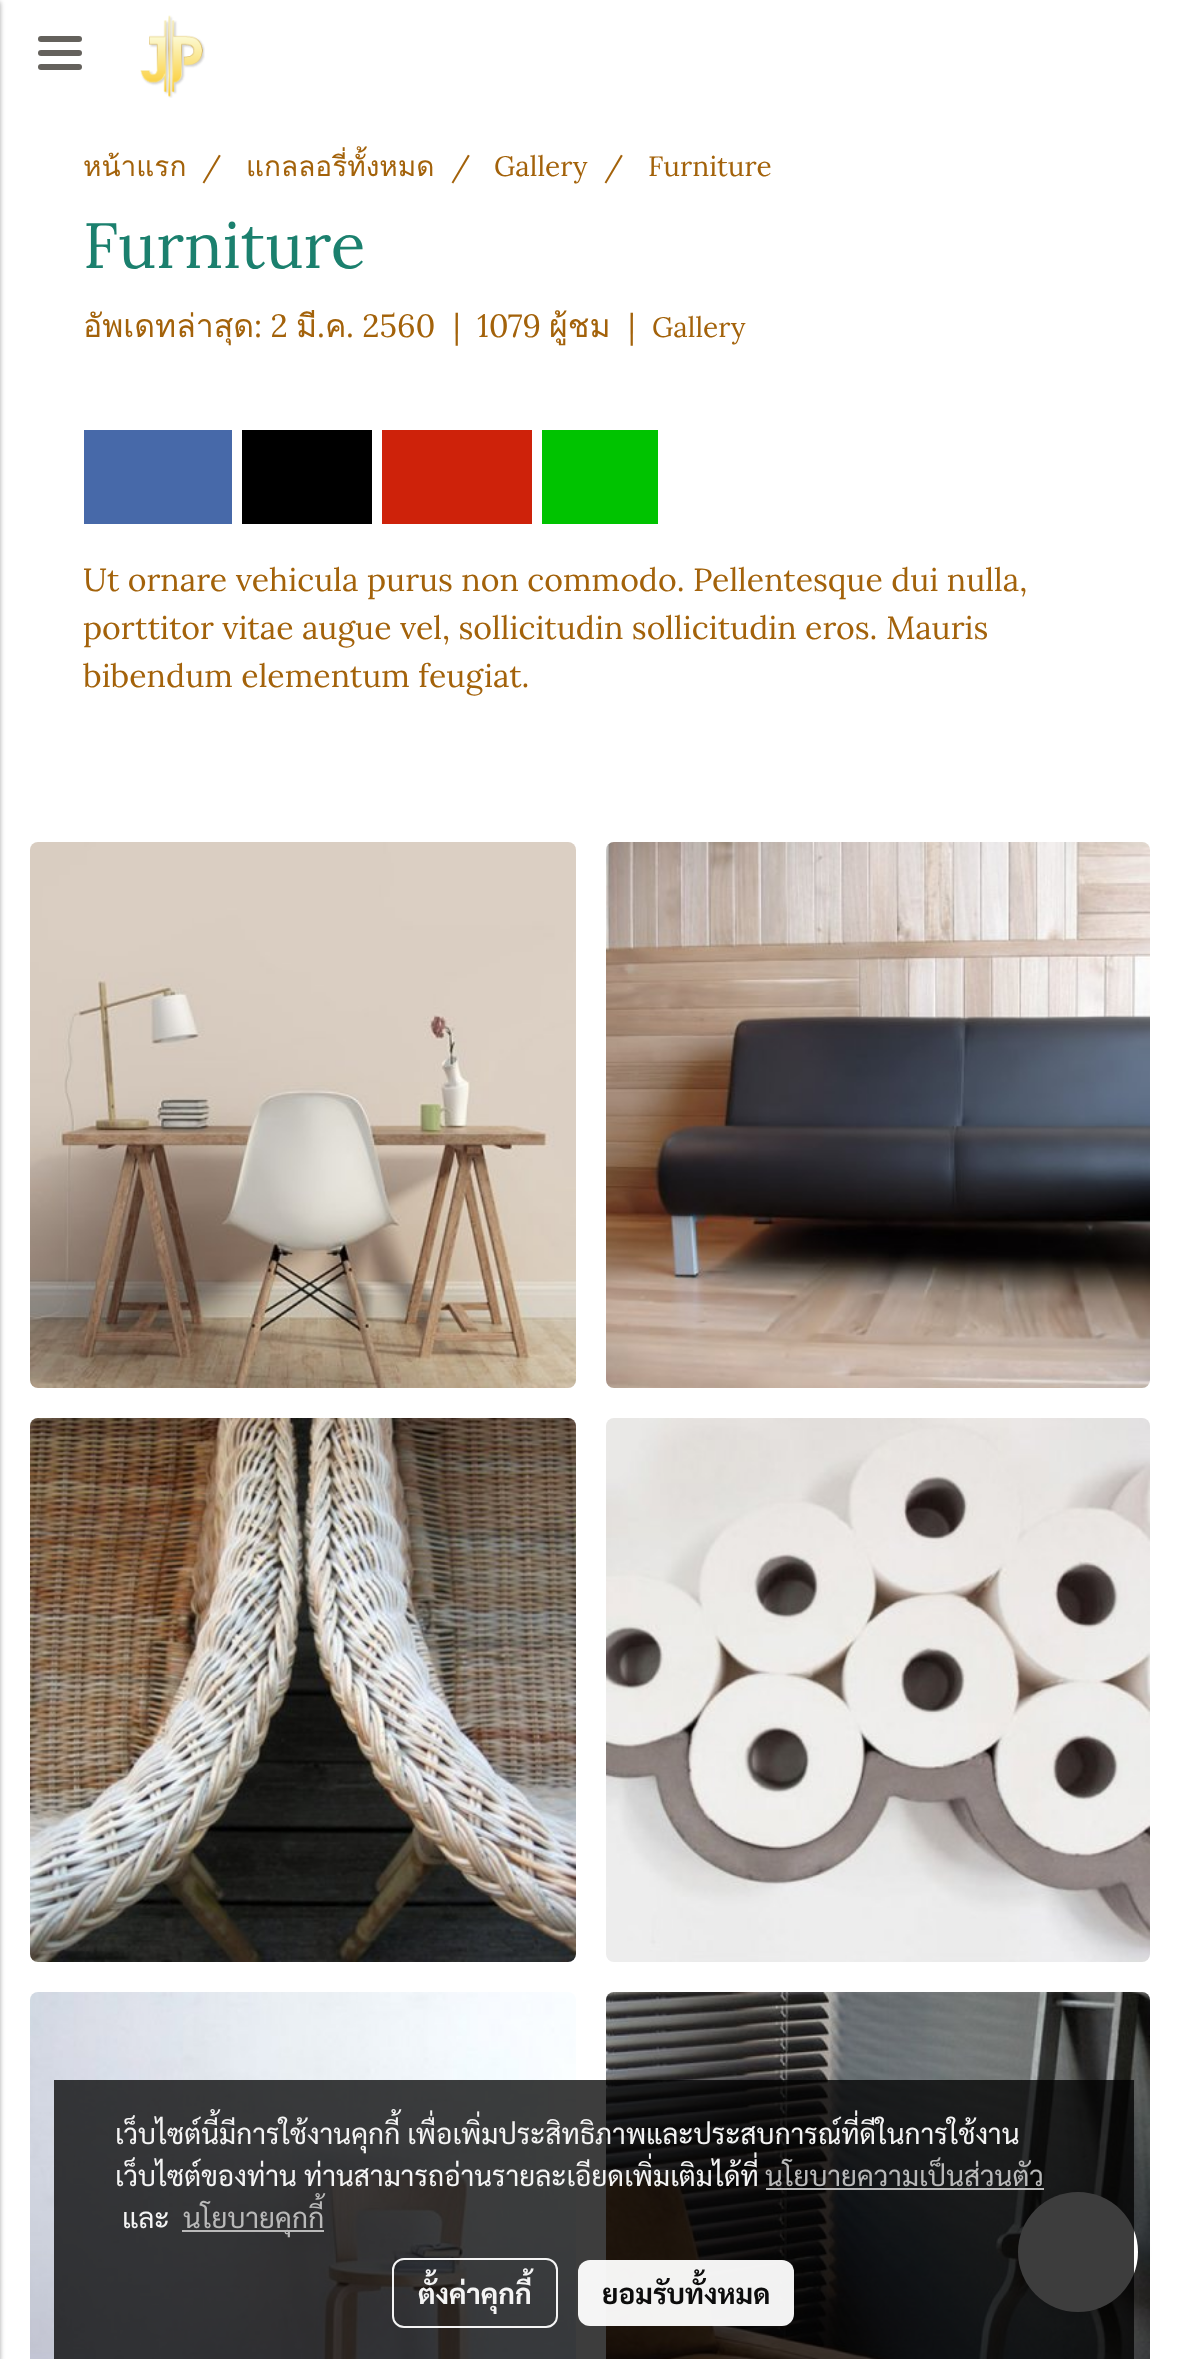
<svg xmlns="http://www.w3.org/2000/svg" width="1186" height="2359">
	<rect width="100%" height="100%" fill="#FFFFFF" />
	<rect x="-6" y="2" width="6" height="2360" fill="#000000" fill-opacity="0.24" filter="blur(2px)" />
	<rect x="-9" y="2" width="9" height="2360" fill="#000000" fill-opacity="0.12" filter="blur(3px)" />
	<rect x="38" y="50" width="44" height="6" rx="3" fill="#64615C" />
	<rect x="38" y="36" width="44" height="6" rx="3" fill="#64615C" />
	<rect x="38" y="64" width="44" height="6" rx="3" fill="#64615C" />
	<image x="140" y="15" width="65" height="83" href="assets/img1.png" />
	<text x="83" y="176" font-family="Loma" font-size="28" fill="#A3620A">หน้าแรก</text>
	<text x="202" y="176" font-family="Lora" font-size="28" fill="#A3620A">/</text>
	<text x="246" y="176" font-family="Loma" font-size="28" fill="#A3620A">แกลลอรี่ทั้งหมด</text>
	<g font-family="Lora" font-size="28" fill="#A3620A">
		<text x="451" y="176">/</text>
		<text x="494" y="176">Gallery</text>
		<text x="604" y="176">/</text>
		<text x="648" y="176">Furniture</text>
	</g>
	<text x="83" y="268" font-family="Lora" font-size="64" fill="#1B806E">Furniture</text>
	<text x="83" y="337" font-family="Loma" font-size="32" fill="#A3620A">อัพเดทล่าสุด</text>
	<text x="254" y="337" font-family="Lora" font-size="32" fill="#A3620A">: 2</text>
	<text x="296" y="337" font-family="Loma" font-size="32" fill="#A3620A">มี</text>
	<text x="317" y="337" font-family="Lora" font-size="32" fill="#A3620A">.</text>
	<text x="325" y="337" font-family="Loma" font-size="32" fill="#A3620A">ค</text>
	<g font-family="Lora" font-size="32" fill="#A3620A">
		<text x="346" y="337">. 2560</text>
		<text x="453" y="337">|</text>
		<text x="477" y="337">1079</text>
	</g>
	<text x="549" y="337" font-family="Loma" font-size="32" fill="#A3620A">ผู้ชม</text>
	<text x="628" y="337" font-family="Lora" font-size="32" fill="#A3620A">|</text>
	<text x="652" y="337" font-family="Lora" font-size="28" fill="#A3620A">Gallery</text>
	<rect x="84" y="430" width="148" height="94" fill="#4769A9" />
	<rect x="242" y="430" width="130" height="94" fill="#000000" />
	<rect x="382" y="430" width="150" height="94" fill="#CE220A" />
	<rect x="542" y="430" width="116" height="94" fill="#00C300" />
	<g font-family="Lora" font-size="32" fill="#A3620A">
		<text x="83" y="591">Ut ornare vehicula purus non commodo. Pellentesque dui nulla,</text>
		<text x="83" y="639">porttitor vitae augue vel, sollicitudin sollicitudin eros. Mauris</text>
		<text x="83" y="687">bibendum elementum feugiat.</text>
	</g>
	<image x="30" y="842" width="546" height="546" href="assets/img2.png" />
	<image x="606" y="842" width="544" height="546" href="assets/img3.png" />
	<image x="30" y="1418" width="546" height="544" href="assets/img4.png" />
	<image x="606" y="1418" width="544" height="544" href="assets/img5.png" />
	<image x="30" y="1992" width="546" height="367" href="assets/img6.png" />
	<image x="606" y="1992" width="544" height="367" href="assets/img7.png" />
	<rect x="1018" y="2192" width="120" height="120" rx="60" fill="#000000" fill-opacity="0.14" filter="blur(7px)" />
	<circle cx="1078" cy="2252" r="60" fill="#FFFFFF" />
	<rect x="54" y="2080" width="1080" height="279" fill="#000000" fill-opacity="0.76" />
	<g font-family="Sarabun" font-size="28" fill="#F4F4F4">
		<text x="115" y="2144">เว็บไซต์นี้มีการใช้งานคุกกี้ เพื่อเพิ่มประสิทธิภาพและประสบการณ์ที่ดีในการใช้งาน</text>
		<text x="115" y="2186">เว็บไซต์ของท่าน</text>
		<text x="304" y="2186">ท่านสามารถอ่านรายละเอียดเพิ่มเติมได้ที่</text>
	</g>
	<text x="765" y="2186" font-family="Sarabun" font-size="28" fill="#B9B9B9">นโยบายความเป็นส่วนตัว</text>
	<rect x="766" y="2188" width="278" height="2" fill="#C2C2C2" fill-opacity="0.95" />
	<text x="122" y="2228" font-family="Sarabun" font-size="28" fill="#F4F4F4">และ</text>
	<rect x="182" y="2230" width="142" height="2" fill="#C2C2C2" fill-opacity="0.95" />
	<text x="183" y="2228" font-family="Sarabun" font-size="28" fill="#B9B9B9">นโยบายคุกกี้</text>
	<rect x="393" y="2259" width="164" height="68" rx="11" fill="none" stroke="#FFFFFF" stroke-opacity="0.95" stroke-width="2" />
	<text x="418" y="2304" font-family="Sarabun" font-size="28" font-weight="700" fill="#F4F4F4">ตั้งค่าคุกกี้</text>
	<rect x="578" y="2260" width="216" height="66" rx="12" fill="#FFFFFF" fill-opacity="0.95" />
	<text x="602" y="2304" font-family="Sarabun" font-size="28" font-weight="700" fill="#0C0C0C">ยอมรับทั้งหมด</text>
</svg>
